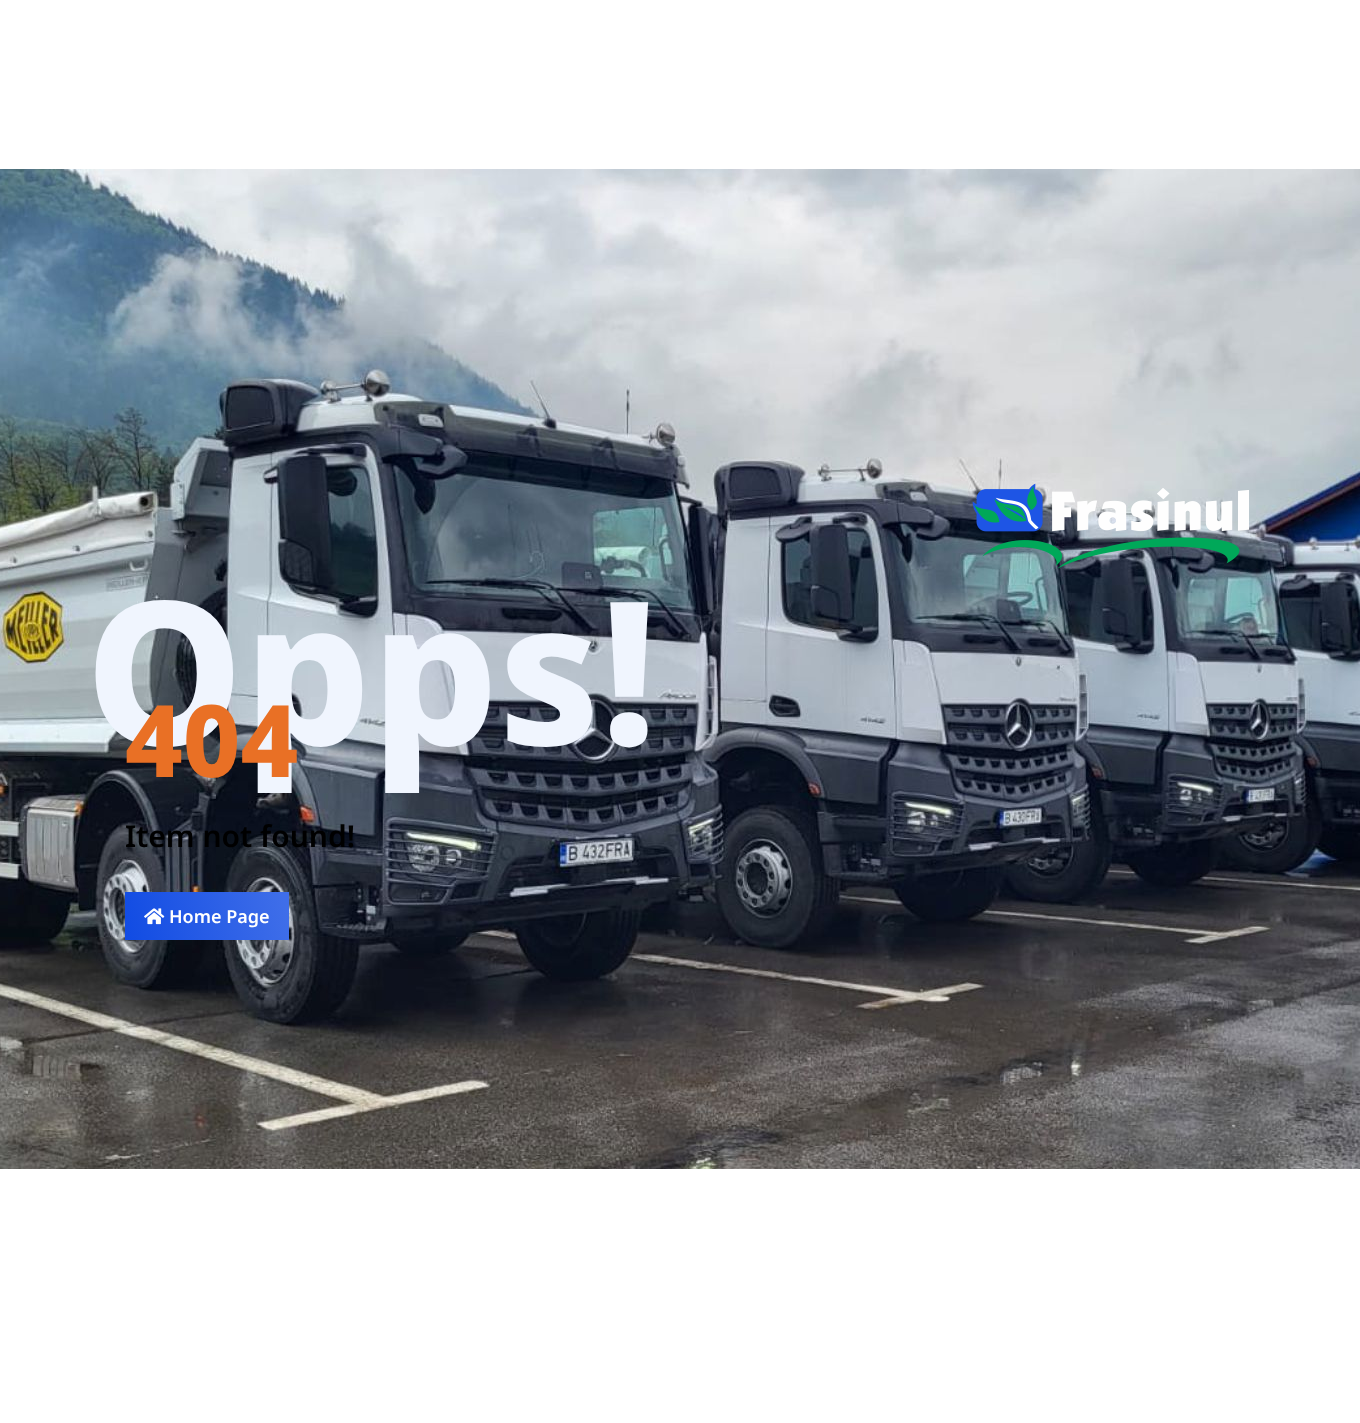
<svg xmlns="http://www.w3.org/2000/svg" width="1360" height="1423">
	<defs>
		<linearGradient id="g1" gradientUnits="userSpaceOnUse" x1="290" y1="895" x2="119" y2="939"><stop offset="0.04" stop-color="#3F6EE9" /><stop offset="1" stop-color="#0F4AE3" /></linearGradient>
	</defs>
	<rect width="100%" height="100%" fill="#FFFFFF" />
	<image x="0" y="169" width="1360" height="1000" href="assets/img1.png" />
	<image x="972" y="483" width="277" height="86" href="assets/img2.png" />
	<text x="85" y="745" font-family="Noto Sans" font-size="200" font-weight="800" fill="#F0F5FE">Opps!</text>
	<text x="125" y="777" font-family="Noto Sans" font-size="100" font-weight="800" fill="#E97025">404</text>
	<text x="125" y="847" font-family="Noto Sans" font-size="30" font-weight="600" fill="#000000">Item not found!</text>
	<rect x="125" y="892" width="164" height="48" fill="url(#g1)" />
	<image x="144" y="908" width="21" height="17" href="assets/img3.png" />
	<text x="169" y="923" font-family="Noto Sans" font-size="18" font-weight="600" fill="#FFFFFF">Home Page</text>
</svg>
